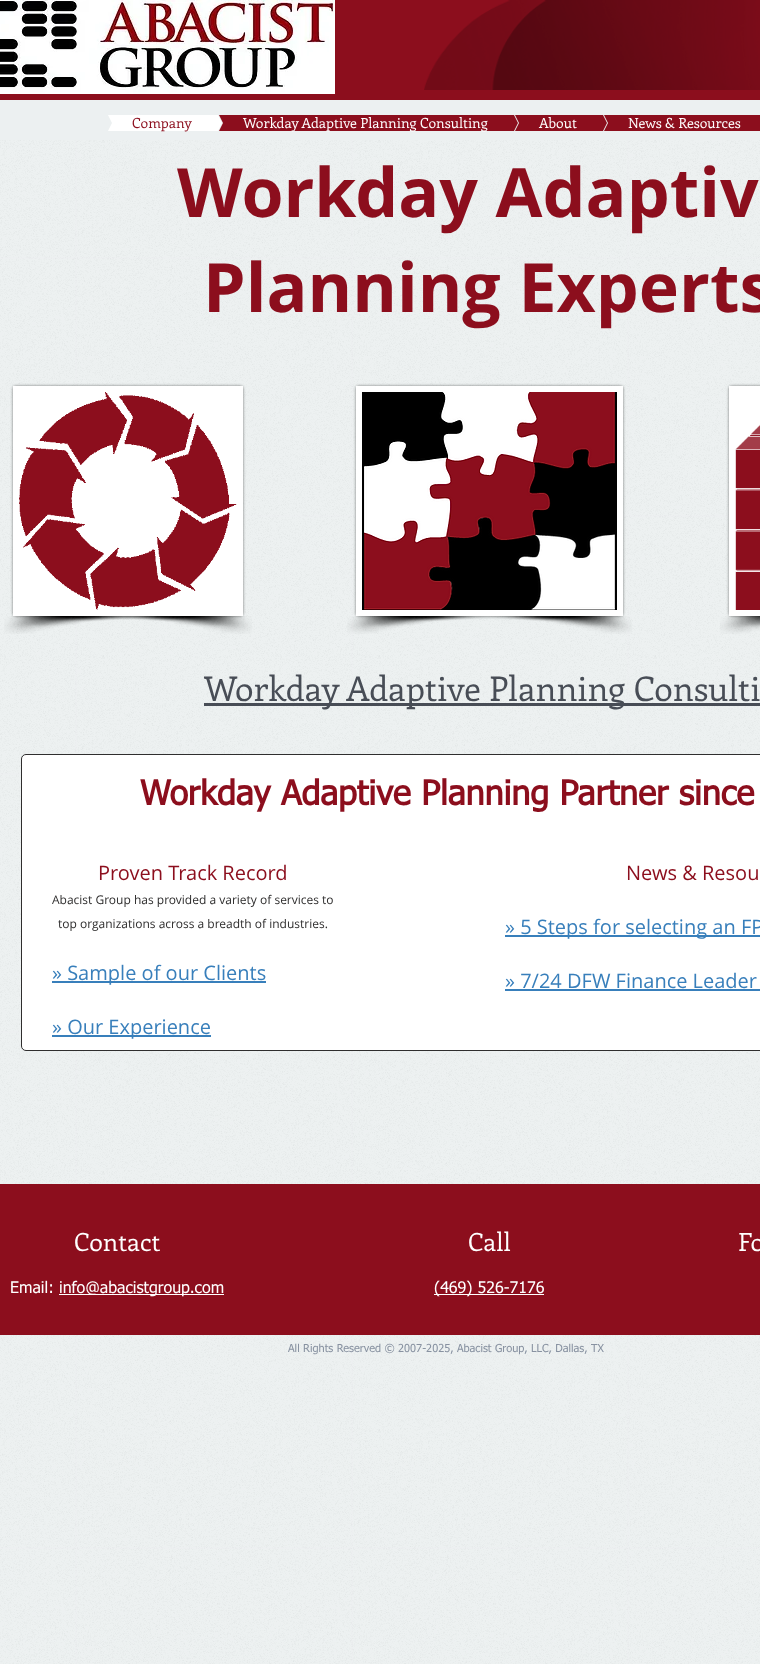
<svg xmlns="http://www.w3.org/2000/svg" width="760" height="1664">
	<defs>
		<clipPath id="clip1"><rect x="42" y="115" width="70" height="16" /></clipPath>
		<clipPath id="clip2"><rect x="152" y="115" width="70" height="16" /></clipPath>
		<clipPath id="clip3"><rect x="153" y="115" width="70" height="16" /></clipPath>
		<clipPath id="clip4"><rect x="448" y="115" width="70" height="16" /></clipPath>
		<clipPath id="clip5"><rect x="449" y="115" width="70" height="16" /></clipPath>
		<clipPath id="clip6"><rect x="537" y="115" width="70" height="16" /></clipPath>
		<clipPath id="clip7"><rect x="538" y="115" width="70" height="16" /></clipPath>
		<clipPath id="clip8"><rect x="701" y="115" width="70" height="16" /></clipPath>
	</defs>
	<rect width="100%" height="100%" fill="#ECF0F1" />
	<rect x="0" y="0" width="760" height="100" fill="#8C0E1D" />
	<image x="0" y="0" width="335" height="94" href="assets/img1.png" />
	<image x="424" y="0" width="336" height="90" href="assets/img2.png" />
	<g clip-path="url(#clip1)">
		<path d="M42-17H112V123ZM112 263H42L112 123Z" fill="#FFFFFF" />
	</g>
	<rect x="112" y="115" width="40" height="16" fill="#FFFFFF" />
	<g clip-path="url(#clip2)">
		<path d="M222 123H152V-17Z" fill="#FFFFFF" />
		<path d="M152 123H222L152 263Z" fill="#FFFFFF" />
	</g>
	<text x="132" y="128" font-family="Enriqueta" font-size="14" fill="#8C0E1D">Company</text>
	<g clip-path="url(#clip3)">
		<path d="M153-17H223V123ZM223 263H153L223 123Z" fill="#8C0E1D" />
	</g>
	<rect x="223" y="115" width="225" height="16" fill="#8C0E1D" />
	<g clip-path="url(#clip4)">
		<path d="M518 123H448V-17Z" fill="#8C0E1D" />
		<path d="M448 123H518L448 263Z" fill="#8C0E1D" />
	</g>
	<text x="243" y="128" font-family="Enriqueta" font-size="14" fill="#FFFFFF">Workday Adaptive Planning Consulting</text>
	<g clip-path="url(#clip5)">
		<path d="M449-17H519V123ZM519 263H449L519 123Z" fill="#8C0E1D" />
	</g>
	<rect x="519" y="115" width="18" height="16" fill="#8C0E1D" />
	<g clip-path="url(#clip6)">
		<path d="M607 123H537V-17Z" fill="#8C0E1D" />
		<path d="M537 123H607L537 263Z" fill="#8C0E1D" />
	</g>
	<text x="539" y="128" font-family="Enriqueta" font-size="14" fill="#FFFFFF">About</text>
	<g clip-path="url(#clip7)">
		<path d="M538-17H608V123ZM608 263H538L608 123Z" fill="#8C0E1D" />
	</g>
	<rect x="608" y="115" width="93" height="16" fill="#8C0E1D" />
	<g clip-path="url(#clip8)">
		<path d="M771 123H701V-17ZM701 123H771L701 263Z" fill="#8C0E1D" />
	</g>
	<text x="628" y="128" font-family="Enriqueta" font-size="14" fill="#FFFFFF">News &amp; Resources</text>
	<image x="0" y="140" width="760" height="1524" href="assets/img11.png" />
	<g font-family="Open Sans" font-size="68" font-weight="700" fill="#8C0E1D">
		<text x="177" y="217">Workday Adaptiv</text>
		<text x="203" y="312">Planning Experts</text>
	</g>
	<rect x="13" y="386" width="230" height="230" rx="3" fill="#000000" fill-opacity="0.5" filter="blur(1.5px)" />
	<rect x="16" y="389" width="224" height="224" fill="#FFFFFF" stroke="#FFFFFF" stroke-width="6" />
	<image x="19" y="392" width="218" height="218" href="assets/img3.png" />
	<image x="4" y="616" width="154" height="18" href="assets/img4.png" />
	<image x="111" y="616" width="141" height="18" href="assets/img5.png" />
	<rect x="356" y="386" width="267" height="230" rx="3" fill="#000000" fill-opacity="0.5" filter="blur(1.5px)" />
	<rect x="359" y="389" width="261" height="224" fill="#FFFFFF" stroke="#FFFFFF" stroke-width="6" />
	<image x="362" y="392" width="255" height="218" href="assets/img6.png" />
	<image x="347" y="616" width="154" height="18" href="assets/img7.png" />
	<image x="478" y="616" width="154" height="18" href="assets/img8.png" />
	<rect x="729" y="386" width="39" height="230" rx="3" fill="#000000" fill-opacity="0.5" filter="blur(1.5px)" />
	<rect x="732" y="389" width="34" height="224" fill="#FFFFFF" stroke="#FFFFFF" stroke-width="6" />
	<image x="735" y="424" width="25" height="186" href="assets/img9.png" />
	<image x="720" y="616" width="40" height="18" href="assets/img10.png" />
	<rect x="204" y="703" width="556" height="3" fill="#484D56" />
	<text x="204" y="701" font-family="Enriqueta" font-size="34" fill="#484D56">Workday Adaptive Planning Consulti</text>
	<rect x="21.5" y="754.5" width="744" height="296" rx="4.5" fill="#FFFFFF" stroke="#2F2E2E" />
	<text x="140" y="805" font-family="tahoma" font-size="34" font-weight="700" fill="#8C0E1D">Workday Adaptive Planning Partner since</text>
	<text x="98" y="880" font-family="Open Sans" font-size="20" fill="#8C0E1D">Proven Track Record</text>
	<g font-family="Open Sans" font-size="12" fill="#2F2E2E">
		<text x="52" y="904">Abacist Group has provided a variety of services to</text>
		<text x="58" y="928">top organizations across a breadth of industries.</text>
	</g>
	<text x="626" y="880" font-family="Open Sans" font-size="20" fill="#8C0E1D">News &amp; Resou</text>
	<rect x="505" y="935" width="255" height="2" fill="#387FBB" />
	<g font-family="Open Sans" font-size="20" fill="#387FBB">
		<text x="505" y="934">» 5 Steps for selecting an FP</text>
		<text x="505" y="988">» 7/24 DFW Finance Leader</text>
	</g>
	<rect x="505" y="989" width="255" height="2" fill="#387FBB" />
	<rect x="52" y="981" width="214" height="2" fill="#387FBB" />
	<text x="52" y="980" font-family="Open Sans" font-size="20" fill="#387FBB">» Sample of our Clients</text>
	<rect x="52" y="1035" width="159" height="2" fill="#387FBB" />
	<text x="52" y="1034" font-family="Open Sans" font-size="20" fill="#387FBB">» Our Experience</text>
	<rect x="0" y="1184" width="760" height="151" fill="#8C0E1D" />
	<g font-family="Enriqueta" font-size="25" fill="#FFFFFF">
		<text x="74" y="1251">Contact</text>
		<text x="468" y="1251">Call</text>
		<text x="738" y="1251">Fo</text>
	</g>
	<text x="10" y="1293" font-family="tahoma" font-size="16" fill="#FFFFFF">Email:</text>
	<rect x="59" y="1294" width="165" height="1" fill="#FFFFFF" />
	<text x="59" y="1293" font-family="tahoma" font-size="16" fill="#FFFFFF">info@abacistgroup.com</text>
	<rect x="434" y="1294" width="110" height="1" fill="#FFFFFF" />
	<text x="434" y="1293" font-family="tahoma" font-size="16" fill="#FFFFFF">(469) 526-7176</text>
	<text x="288" y="1352" font-family="tahoma" font-size="11" fill="#8892A1">All Rights Reserved © 2007-2025, Abacist Group, LLC, Dallas, TX</text>
</svg>
